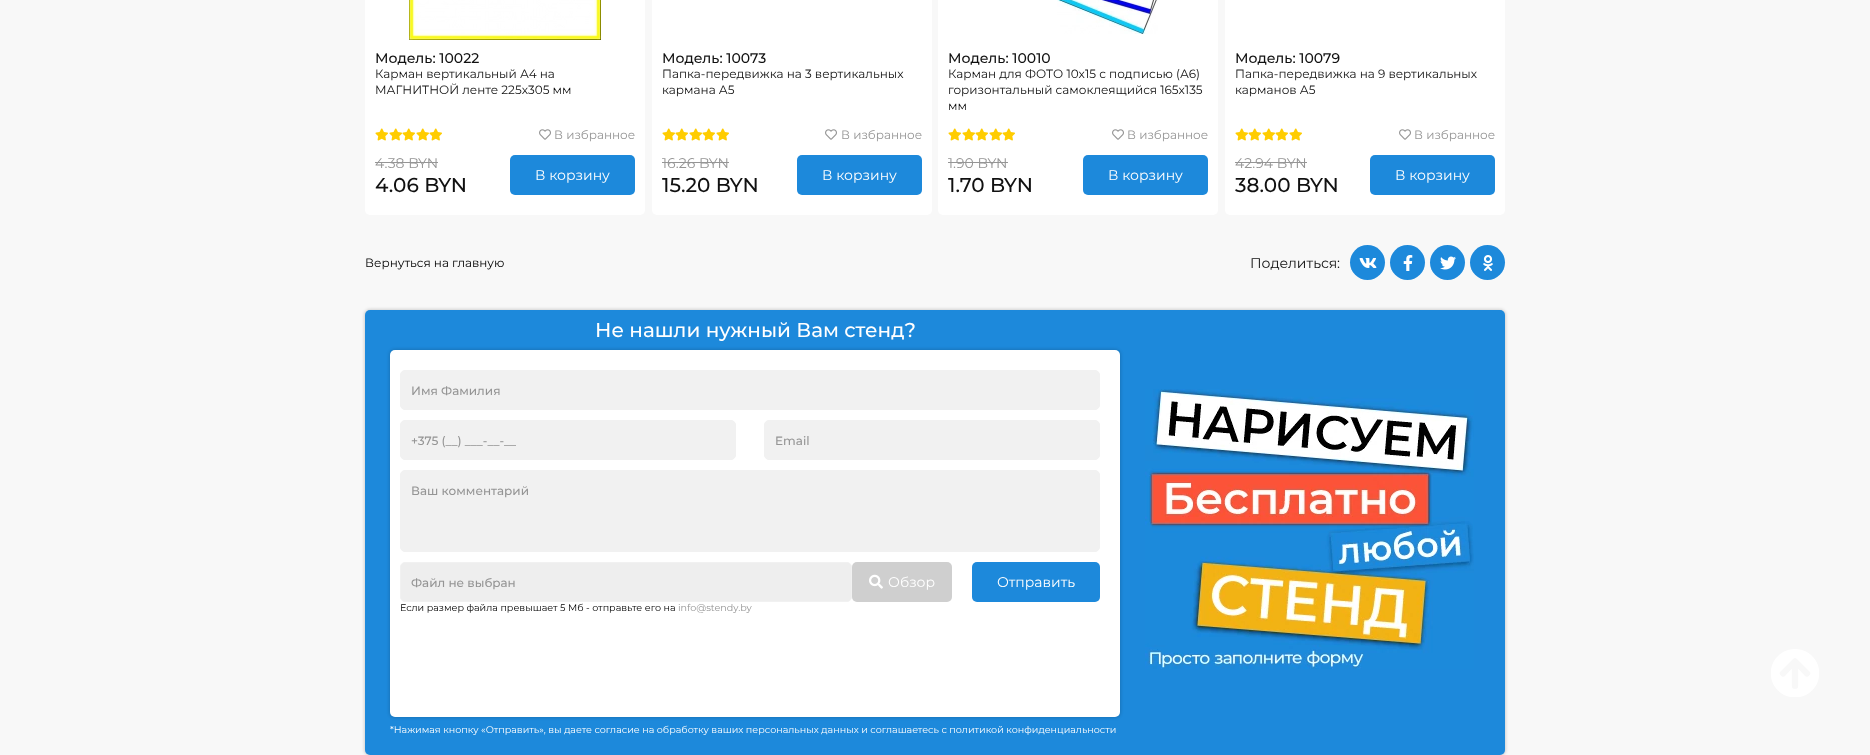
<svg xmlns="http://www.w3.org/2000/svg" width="1870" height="755">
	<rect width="100%" height="100%" fill="#F8F8F8" />
	<rect x="365" y="-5" width="280" height="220" rx="5" fill="#FFFFFF" />
	<image x="409" y="0" width="192" height="40" href="assets/img1.png" />
	<text x="375" y="63" font-family="Montserrat" font-size="14" font-weight="500" fill="#111111">Модель: 10022</text>
	<g font-family="Montserrat" font-size="12" fill="#111111">
		<text x="375" y="78">Карман вертикальный А4 на</text>
		<text x="375" y="94">МАГНИТНОЙ ленте 225х305 мм</text>
	</g>
	<image x="375" y="128" width="13" height="13" href="assets/img2.png" />
	<image x="389" y="128" width="13" height="13" href="assets/img2.png" />
	<image x="402" y="128" width="13" height="13" href="assets/img2.png" />
	<image x="416" y="128" width="13" height="13" href="assets/img2.png" />
	<image x="429" y="128" width="13" height="13" href="assets/img2.png" />
	<image x="539" y="129" width="12" height="11" href="assets/img3.png" />
	<text x="554" y="139" font-family="Montserrat" font-size="12" fill="#959595">В избранное</text>
	<text x="375" y="168" font-family="Montserrat" font-size="14" fill="#959595">4.38 BYN</text>
	<rect x="375" y="162" width="63" height="1" fill="#959595" />
	<text x="375" y="192" font-family="Montserrat" font-size="20" font-weight="500" fill="#111111">4.06 BYN</text>
	<rect x="510" y="155" width="125" height="40" rx="5" fill="#1D89DB" />
	<text x="535" y="180" font-family="Montserrat" font-size="14" fill="#FFFFFF">В корзину</text>
	<rect x="652" y="-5" width="280" height="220" rx="5" fill="#FFFFFF" />
	<text x="662" y="63" font-family="Montserrat" font-size="14" font-weight="500" fill="#111111">Модель: 10073</text>
	<g font-family="Montserrat" font-size="12" fill="#111111">
		<text x="662" y="78">Папка-передвижка на 3 вертикальных</text>
		<text x="662" y="94">кармана А5</text>
	</g>
	<image x="662" y="128" width="13" height="13" href="assets/img2.png" />
	<image x="675" y="128" width="13" height="13" href="assets/img2.png" />
	<image x="689" y="128" width="13" height="13" href="assets/img2.png" />
	<image x="702" y="128" width="13" height="13" href="assets/img2.png" />
	<image x="716" y="128" width="13" height="13" href="assets/img2.png" />
	<image x="825" y="129" width="12" height="11" href="assets/img3.png" />
	<text x="841" y="139" font-family="Montserrat" font-size="12" fill="#959595">В избранное</text>
	<text x="662" y="168" font-family="Montserrat" font-size="14" fill="#959595">16.26 BYN</text>
	<rect x="662" y="162" width="67" height="1" fill="#959595" />
	<text x="662" y="192" font-family="Montserrat" font-size="20" font-weight="500" fill="#111111">15.20 BYN</text>
	<rect x="797" y="155" width="125" height="40" rx="5" fill="#1D89DB" />
	<text x="822" y="180" font-family="Montserrat" font-size="14" fill="#FFFFFF">В корзину</text>
	<rect x="938" y="-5" width="280" height="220" rx="5" fill="#FFFFFF" />
	<image x="1057" y="0" width="101" height="34" href="assets/img4.png" />
	<text x="948" y="63" font-family="Montserrat" font-size="14" font-weight="500" fill="#111111">Модель: 10010</text>
	<g font-family="Montserrat" font-size="12" fill="#111111">
		<text x="948" y="78">Карман для ФОТО 10х15 с подписью (А6)</text>
		<text x="948" y="94">горизонтальный самоклеящийся 165х135</text>
		<text x="948" y="110">мм</text>
	</g>
	<image x="948" y="128" width="13" height="13" href="assets/img2.png" />
	<image x="962" y="128" width="13" height="13" href="assets/img2.png" />
	<image x="975" y="128" width="13" height="13" href="assets/img2.png" />
	<image x="989" y="128" width="13" height="13" href="assets/img2.png" />
	<image x="1002" y="128" width="13" height="13" href="assets/img2.png" />
	<image x="1112" y="129" width="12" height="11" href="assets/img3.png" />
	<text x="1127" y="139" font-family="Montserrat" font-size="12" fill="#959595">В избранное</text>
	<text x="948" y="168" font-family="Montserrat" font-size="14" fill="#959595">1.90 BYN</text>
	<rect x="948" y="162" width="60" height="1" fill="#959595" />
	<text x="948" y="192" font-family="Montserrat" font-size="20" font-weight="500" fill="#111111">1.70 BYN</text>
	<rect x="1083" y="155" width="125" height="40" rx="5" fill="#1D89DB" />
	<text x="1108" y="180" font-family="Montserrat" font-size="14" fill="#FFFFFF">В корзину</text>
	<rect x="1225" y="-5" width="280" height="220" rx="5" fill="#FFFFFF" />
	<text x="1235" y="63" font-family="Montserrat" font-size="14" font-weight="500" fill="#111111">Модель: 10079</text>
	<g font-family="Montserrat" font-size="12" fill="#111111">
		<text x="1235" y="78">Папка-передвижка на 9 вертикальных</text>
		<text x="1235" y="94">карманов А5</text>
	</g>
	<image x="1235" y="128" width="13" height="13" href="assets/img2.png" />
	<image x="1248" y="128" width="13" height="13" href="assets/img2.png" />
	<image x="1262" y="128" width="13" height="13" href="assets/img2.png" />
	<image x="1275" y="128" width="13" height="13" href="assets/img2.png" />
	<image x="1289" y="128" width="13" height="13" href="assets/img2.png" />
	<image x="1399" y="129" width="12" height="11" href="assets/img3.png" />
	<text x="1414" y="139" font-family="Montserrat" font-size="12" fill="#959595">В избранное</text>
	<text x="1235" y="168" font-family="Montserrat" font-size="14" fill="#959595">42.94 BYN</text>
	<rect x="1235" y="162" width="72" height="1" fill="#959595" />
	<text x="1235" y="192" font-family="Montserrat" font-size="20" font-weight="500" fill="#111111">38.00 BYN</text>
	<rect x="1370" y="155" width="125" height="40" rx="5" fill="#1D89DB" />
	<text x="1395" y="180" font-family="Montserrat" font-size="14" fill="#FFFFFF">В корзину</text>
	<text x="365" y="267" font-family="Montserrat" font-size="12" fill="#000000">Вернуться на главную</text>
	<text x="1250" y="268" font-family="Montserrat" font-size="14" fill="#111111">Поделиться:</text>
	<circle cx="1367.5" cy="262.5" r="17.5" fill="#1D89DB" />
	<image x="1359" y="258" width="18" height="10" href="assets/img5.png" />
	<circle cx="1407.5" cy="262.5" r="17.5" fill="#1D89DB" />
	<image x="1403" y="255" width="10" height="16" href="assets/img6.png" />
	<circle cx="1447.5" cy="262.5" r="17.5" fill="#1D89DB" />
	<image x="1440" y="256" width="16" height="14" href="assets/img7.png" />
	<circle cx="1487.5" cy="262.5" r="17.5" fill="#1D89DB" />
	<image x="1483" y="255" width="10" height="16" href="assets/img8.png" />
	<rect x="364" y="309" width="1142" height="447" rx="6" fill="#000000" fill-opacity="0.15" filter="blur(1.5px)" />
	<rect x="365" y="310" width="1140" height="445" rx="5" fill="#1D89DB" />
	<text x="595" y="337" font-family="Montserrat" font-size="20" font-weight="500" fill="#FFFFFF">Не нашли нужный Вам стенд?</text>
	<rect x="389" y="349" width="732" height="369" rx="6" fill="#000000" fill-opacity="0.15" filter="blur(1.5px)" />
	<rect x="390" y="350" width="730" height="367" rx="5" fill="#FFFFFF" />
	<rect x="400.5" y="370.5" width="699" height="39" rx="4.5" fill="#F1F1F1" stroke="#F1F1F1" />
	<text x="411" y="395" font-family="Montserrat" font-size="12" font-weight="500" fill="#959595">Имя Фамилия</text>
	<rect x="400.5" y="420.5" width="335" height="39" rx="4.5" fill="#F1F1F1" stroke="#F1F1F1" />
	<text x="411" y="445" font-family="Montserrat" font-size="12" font-weight="500" fill="#959595">+375 (__) ___-__-__</text>
	<rect x="764.5" y="420.5" width="335" height="39" rx="4.5" fill="#F1F1F1" stroke="#F1F1F1" />
	<text x="775" y="445" font-family="Montserrat" font-size="12" font-weight="500" fill="#959595">Email</text>
	<rect x="400.5" y="470.5" width="699" height="81" rx="4.5" fill="#F1F1F1" stroke="#F1F1F1" />
	<text x="411" y="495" font-family="Montserrat" font-size="12" font-weight="500" fill="#959595">Ваш комментарий</text>
	<rect x="400.5" y="562.5" width="451" height="39" rx="4.5" fill="#EEEEEE" stroke="#F1F1F1" />
	<text x="411" y="587" font-family="Montserrat" font-size="12" font-weight="500" fill="#959595">Файл не выбран</text>
	<rect x="852" y="562" width="100" height="40" rx="5" fill="#CFCFCF" />
	<image x="869" y="574" width="14" height="15" href="assets/img9.png" />
	<text x="888" y="587" font-family="Montserrat" font-size="14" fill="#FFFFFF">Обзор</text>
	<rect x="972" y="562" width="128" height="40" rx="5" fill="#1D89DB" />
	<text x="997" y="587" font-family="Montserrat" font-size="14" fill="#FFFFFF">Отправить</text>
	<text x="400" y="611" font-family="Montserrat" font-size="9.6" fill="#000000">Если размер файла превышает 5 Мб - отправьте его на</text>
	<text x="678" y="611" font-family="Montserrat" font-size="9.6" fill="#959595">info@stendy.by</text>
	<text x="390" y="733" font-family="Montserrat" font-size="9.6" fill="#FFFFFF">*Нажимая кнопку «Отправить», вы даете согласие на обработку ваших персональных данных и соглашаетесь с политикой конфиденциальности</text>
	<image x="1145" y="389" width="329" height="280" href="assets/img10.png" />
	<image x="1771" y="649" width="48" height="48" href="assets/img11.png" />
</svg>
